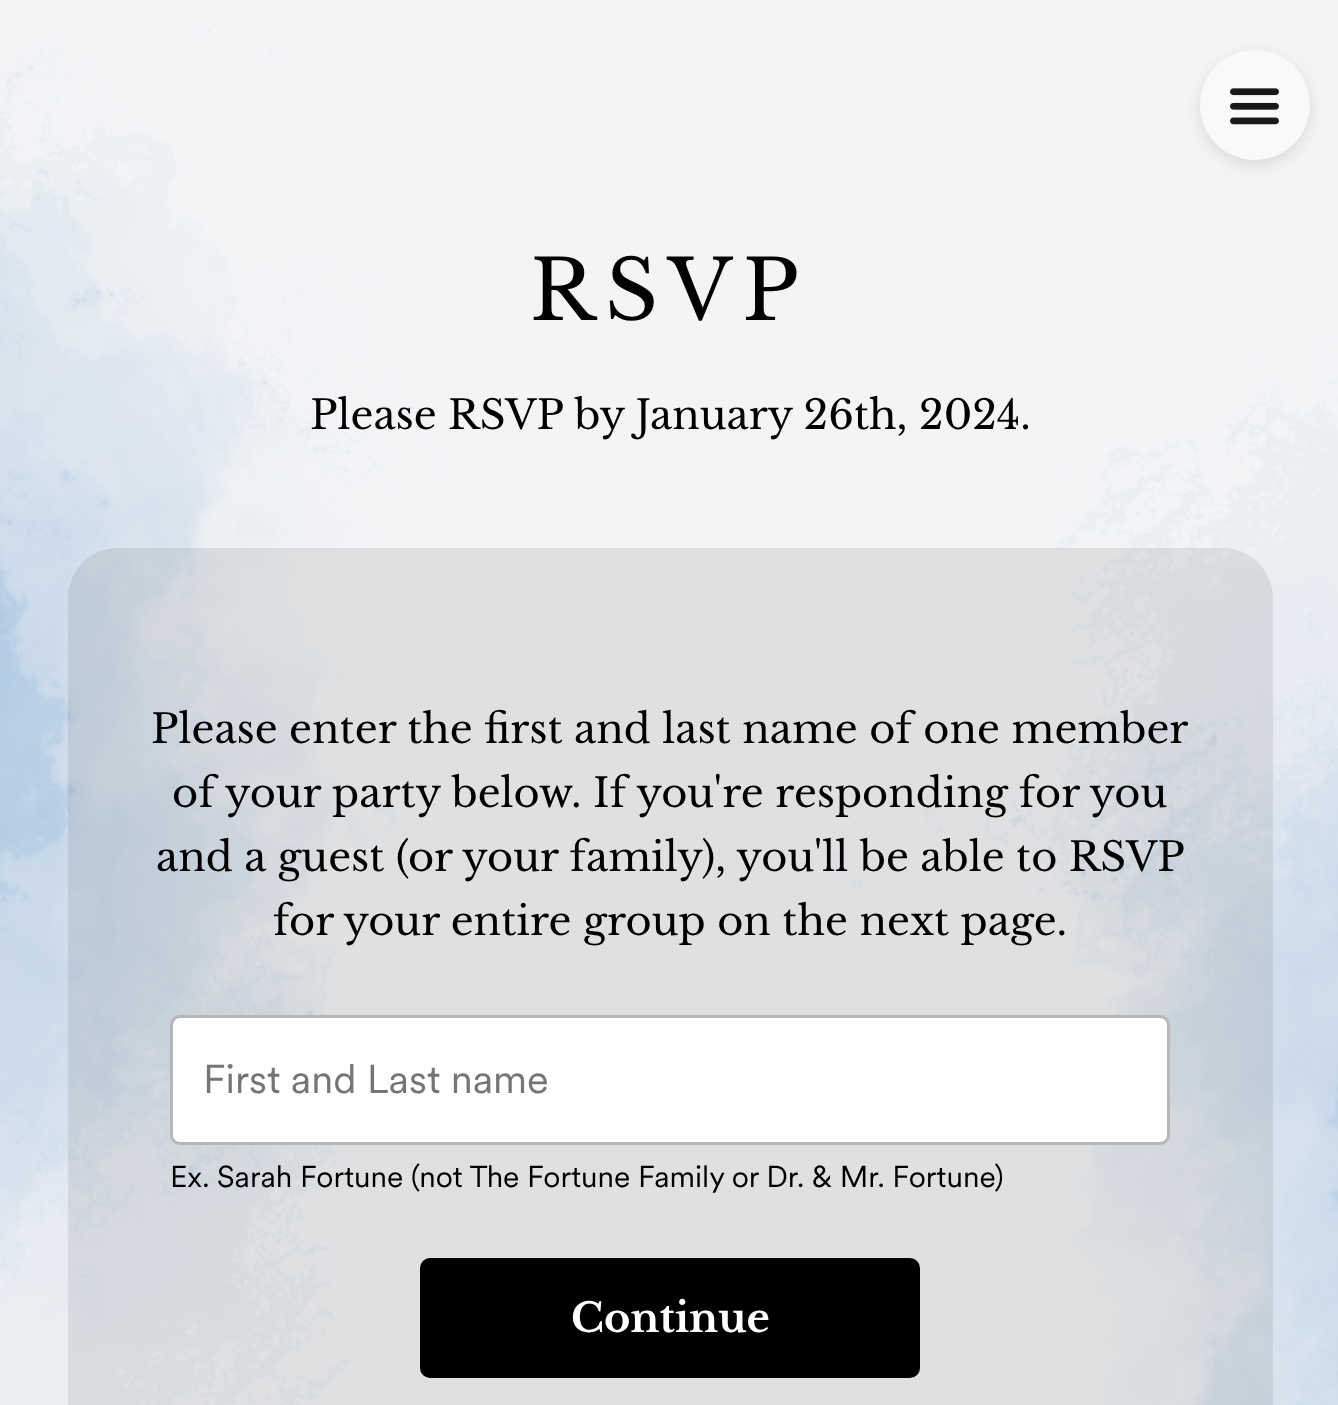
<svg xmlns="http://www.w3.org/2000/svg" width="1338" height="1405">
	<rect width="100%" height="100%" fill="#F3F4F6" />
	<image x="0" y="28" width="1338" height="1377" href="assets/img1.png" />
	<rect x="1200" y="55" width="110" height="110" rx="55" fill="#000000" fill-opacity="0.1" filter="blur(7.5px)" />
	<circle cx="1255" cy="105" r="55" fill="#F9F9F9" />
	<image x="1230" y="88" width="49" height="37" href="assets/img2.png" />
	<text x="530" y="320" font-family="Libre Baskerville" font-size="82.5" letter-spacing="10" fill="#000000">RSVP</text>
	<text x="310" y="429" font-family="Libre Baskerville" font-size="40" fill="#000000">Please RSVP by January 26th, 2024.</text>
	<rect x="68" y="548" width="1205" height="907" rx="50" fill="#000000" fill-opacity="0.08" />
	<g font-family="Libre Baskerville" font-size="40" fill="#000000">
		<text x="151" y="743">Please enter the first and last name of one member</text>
		<text x="172" y="807">of your party below. If you're responding for you</text>
		<text x="156" y="871">and a guest (or your family), you'll be able to RSVP</text>
		<text x="273" y="935">for your entire group on the next page.</text>
	</g>
	<rect x="171.5" y="1016.5" width="997" height="127" rx="8.5" fill="#FFFFFF" stroke="#B7B7B7" stroke-width="3" />
	<text x="203" y="1093" font-family="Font" font-size="40" fill="#757575">First and Last name</text>
	<text x="170" y="1187" font-family="Font" font-size="30" fill="#000000">Ex. Sarah Fortune (not The Fortune Family or Dr. &amp; Mr. Fortune)</text>
	<rect x="420" y="1258" width="500" height="120" rx="10" fill="#000000" />
	<text x="571" y="1332" font-family="Libre Baskerville" font-size="40" font-weight="700" fill="#FFFFFF">Continue</text>
</svg>
